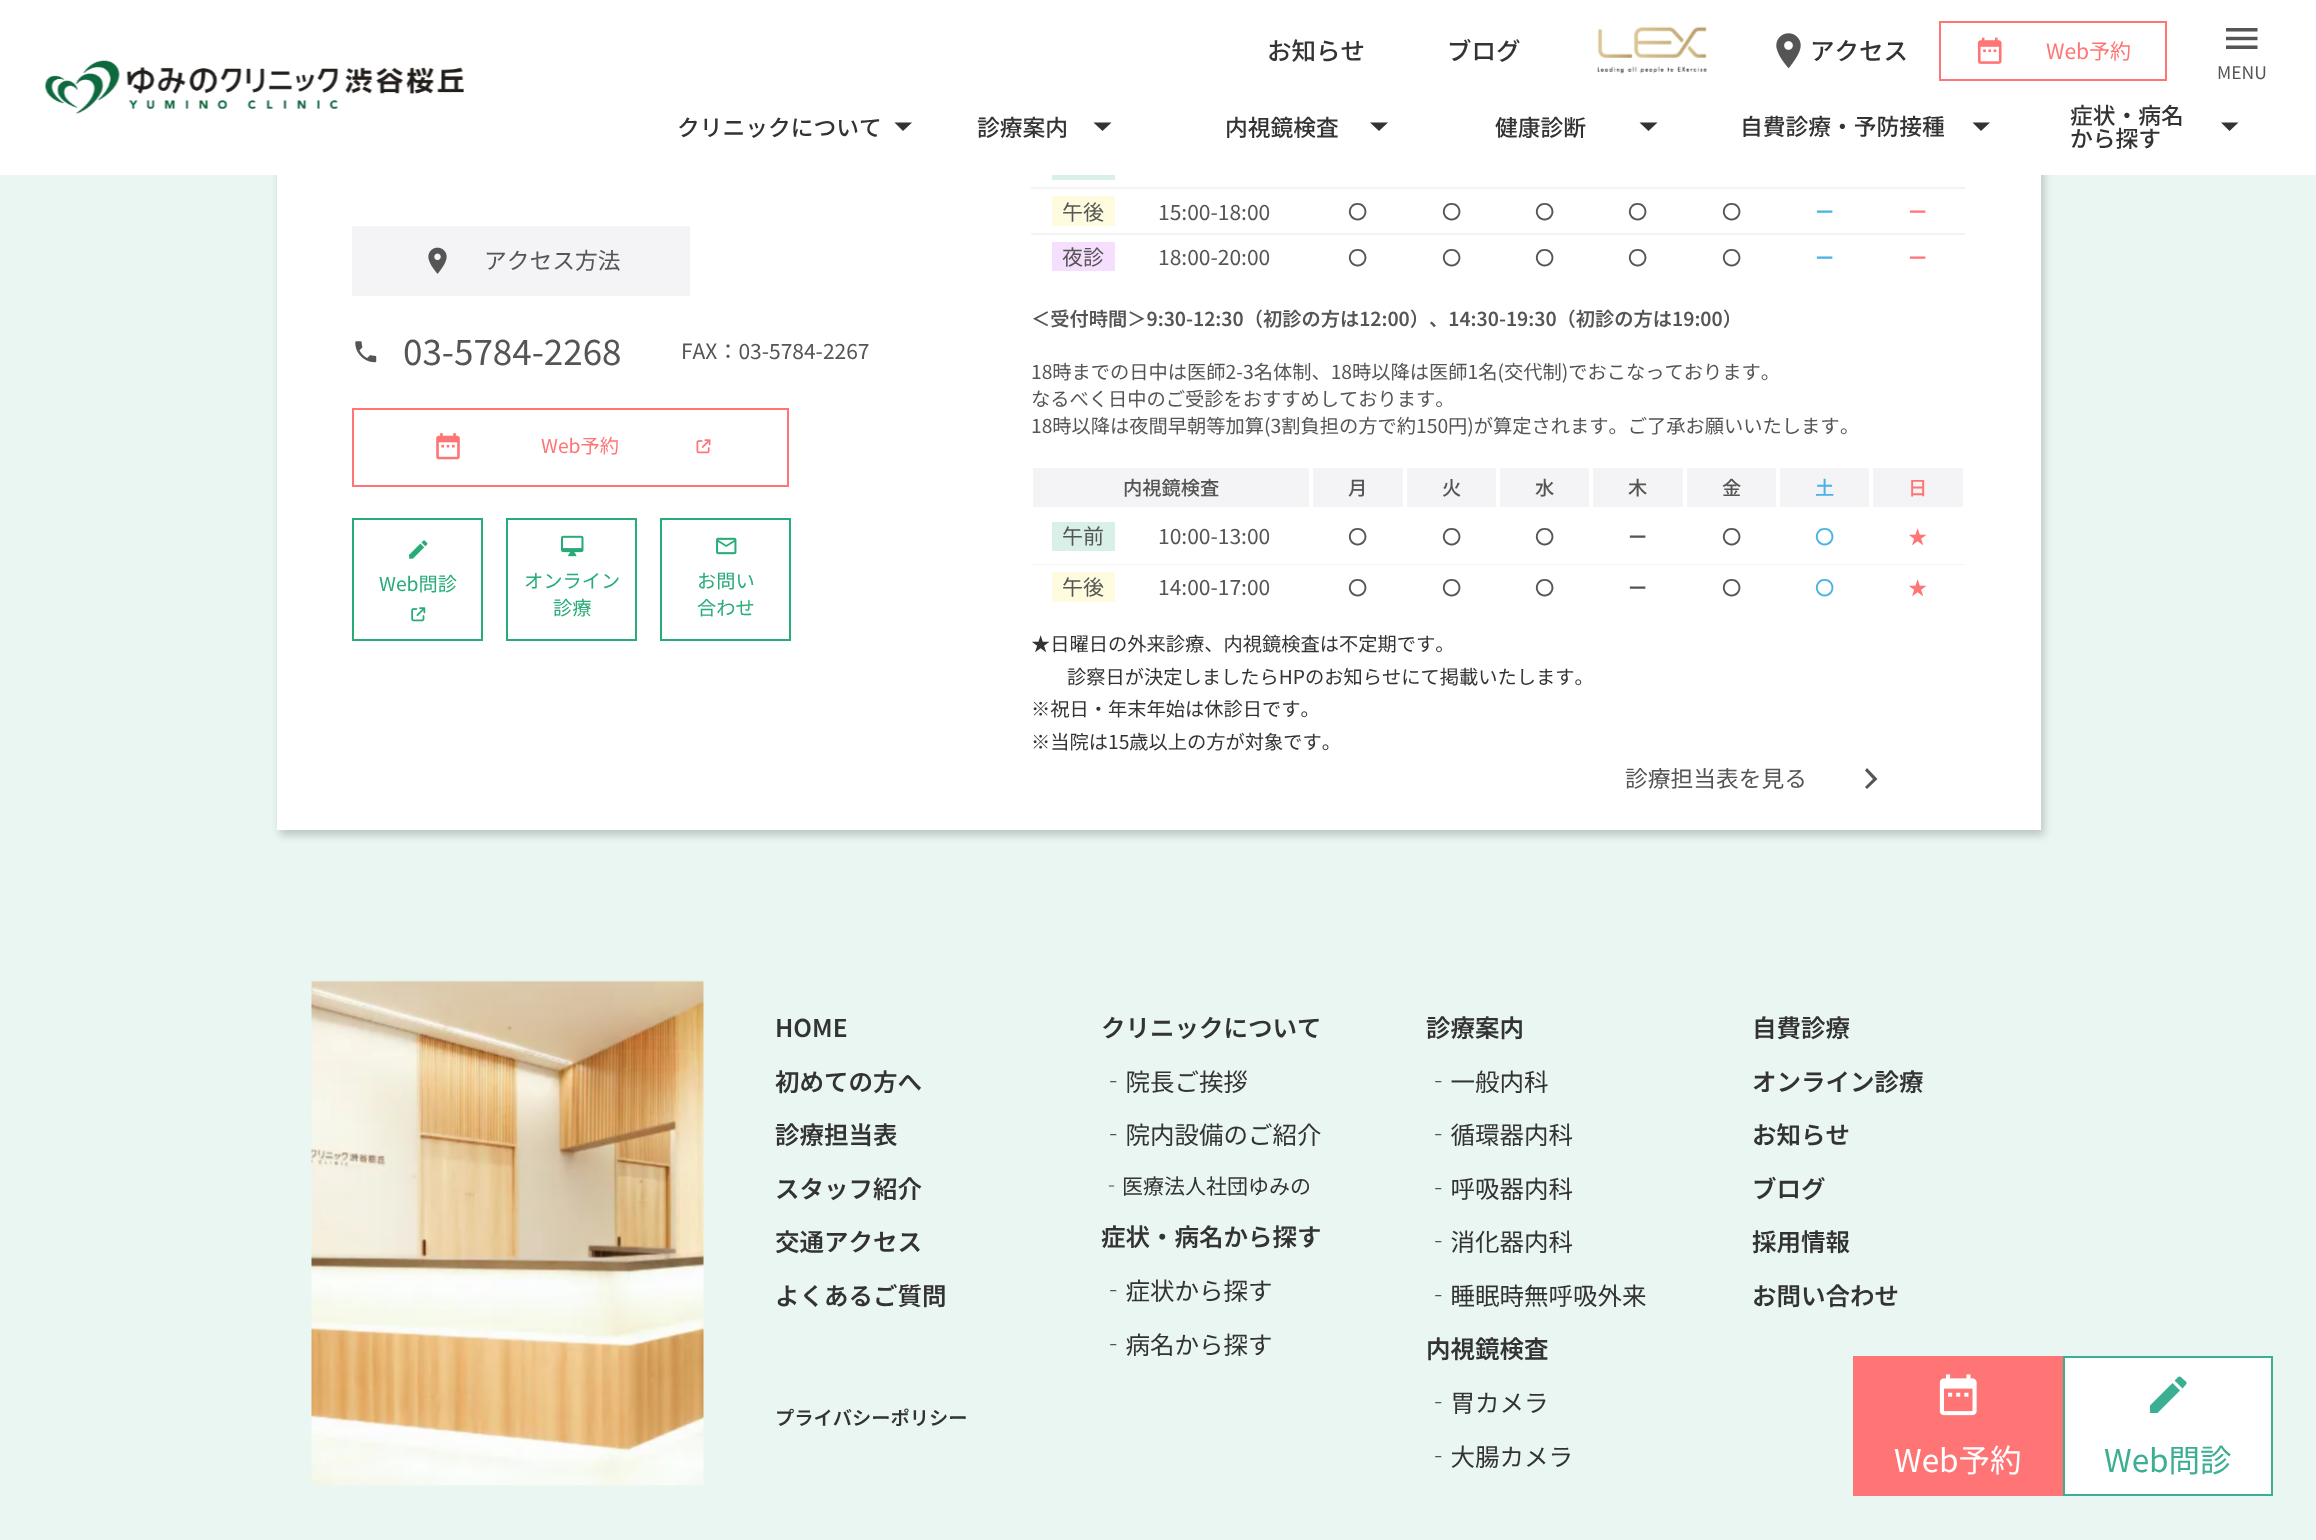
<svg xmlns="http://www.w3.org/2000/svg" width="2316" height="1540">
	<style>*{font-kerning:none!important;font-variant-ligatures:none!important}</style>
	<rect width="100%" height="100%" fill="#EAF6F1" />
	<rect x="280" y="-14" width="1764" height="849" fill="#000000" fill-opacity="0.2" filter="blur(4.5px)" />
	<rect x="0" y="0" width="2316" height="175" fill="#FFFFFF" />
	<image x="45" y="60" width="419" height="54" href="assets/img1.png" />
	<g font-family="Noto Sans JP" font-size="24.5" font-weight="500" fill="#333333">
		<text x="1267" y="60">お知らせ</text>
		<text x="1447" y="60">ブログ</text>
	</g>
	<image x="1597" y="26" width="110" height="48" href="assets/img2.png" />
	<image x="1776" y="33" width="25" height="36" href="assets/img3.png" />
	<text x="1810" y="60" font-family="Noto Sans JP" font-size="24.5" font-weight="500" fill="#333333">アクセス</text>
	<rect x="1940" y="22" width="226" height="58" fill="none" stroke="#FF7575" stroke-width="2" />
	<image x="1977" y="37" width="25" height="27" href="assets/img4.png" />
	<text x="2046" y="59" font-family="Noto Sans JP" font-size="21" fill="#FF7575">Web予約</text>
	<image x="2226" y="28" width="32" height="21" href="assets/img5.png" />
	<text x="2217" y="79" font-family="Noto Sans JP" font-size="17.5" fill="#555555">MENU</text>
	<text x="677" y="136" font-family="Noto Sans JP" font-size="22.75" font-weight="500" fill="#333333">クリニックについて</text>
	<path d="M912 122.5L903 131L894.5 122.5Z" fill="#333333" />
	<text x="977" y="136" font-family="Noto Sans JP" font-size="22.75" font-weight="500" fill="#333333">診療案内</text>
	<path d="M1111.5 122.5L1102.5 131L1093.5 122.5Z" fill="#333333" />
	<text x="1225" y="136" font-family="Noto Sans JP" font-size="22.75" font-weight="500" fill="#333333">内視鏡検査</text>
	<path d="M1388 122.5L1379 131L1370 122.5Z" fill="#333333" />
	<text x="1495" y="136" font-family="Noto Sans JP" font-size="22.75" font-weight="500" fill="#333333">健康診断</text>
	<path d="M1657.5 122.5L1648.5 131L1639.5 122.5Z" fill="#333333" />
	<text x="1740" y="135" font-family="Noto Sans JP" font-size="22.75" font-weight="500" fill="#333333">自費診療・予防接種</text>
	<path d="M1990 122.5L1981 131L1972.5 122.5Z" fill="#333333" />
	<g font-family="Noto Sans JP" font-size="22.75" font-weight="500" fill="#333333">
		<text x="2070" y="124">症状・病名</text>
		<text x="2070" y="147">から探す</text>
	</g>
	<path d="M2238.5 122.5L2229.5 131L2221 122.5Z" fill="#333333" />
	<rect x="277" y="175" width="1764" height="655" fill="#FFFFFF" />
	<rect x="352" y="226" width="338" height="70" fill="#F4F4F6" />
	<image x="428" y="247" width="19" height="27" href="assets/img6.png" />
	<text x="484" y="269" font-family="Noto Sans JP" font-size="22.75" fill="#555555">アクセス方法</text>
	<image x="355" y="341" width="22" height="22" href="assets/img7.png" />
	<text x="403" y="365" font-family="Noto Sans JP" font-size="35" fill="#555555">03-5784-2268</text>
	<text x="681" y="359" font-family="Noto Sans JP" font-size="21" fill="#555555">FAX：03-5784-2267</text>
	<rect x="353" y="409" width="435" height="77" fill="none" stroke="#FF7575" stroke-width="2" />
	<image x="436" y="433" width="24" height="27" href="assets/img8.png" />
	<text x="541" y="453" font-family="Noto Sans JP" font-size="19.25" fill="#FF7575">Web予約</text>
	<image x="696" y="439" width="15" height="15" href="assets/img9.png" />
	<rect x="353" y="519" width="129" height="121" fill="none" stroke="#27AC78" stroke-width="2" />
	<image x="409" y="540" width="19" height="19" href="assets/img10.png" />
	<text x="379" y="591" font-family="Noto Sans JP" font-size="19.25" fill="#27AC78">Web問診</text>
	<image x="411" y="607" width="15" height="15" href="assets/img11.png" />
	<rect x="507" y="519" width="129" height="121" fill="none" stroke="#27AC78" stroke-width="2" />
	<image x="561" y="535" width="23" height="22" href="assets/img12.png" />
	<g font-family="Noto Sans JP" font-size="19.25" fill="#27AC78">
		<text x="524" y="588">オンライン</text>
		<text x="553" y="615">診療</text>
	</g>
	<rect x="661" y="519" width="129" height="121" fill="none" stroke="#27AC78" stroke-width="2" />
	<image x="716" y="537" width="21" height="18" href="assets/img13.png" />
	<g font-family="Noto Sans JP" font-size="19.25" fill="#27AC78">
		<text x="697" y="588">お問い</text>
		<text x="697" y="615">合わせ</text>
	</g>
	<rect x="1031" y="187" width="934" height="2" fill="#F4F4F6" />
	<rect x="1052" y="175" width="63" height="5" fill="#D8F0E7" />
	<rect x="1031" y="233" width="934" height="2" fill="#F4F4F6" />
	<rect x="1052" y="196" width="63" height="30" fill="#FFFBDE" />
	<g font-family="Noto Sans JP" font-size="21" fill="#555555">
		<text x="1062" y="220">午後</text>
		<text x="1158" y="220">15:00-18:00</text>
	</g>
	<g font-family="Noto Sans JP" font-size="19.25" font-weight="500" fill="#555555">
		<text x="1348" y="219">〇</text>
		<text x="1442" y="219">〇</text>
		<text x="1535" y="219">〇</text>
		<text x="1628" y="219">〇</text>
		<text x="1722" y="219">〇</text>
	</g>
	<text x="1815" y="219" font-family="Noto Sans JP" font-size="19.25" font-weight="500" fill="#4BB3E3">ー</text>
	<text x="1908" y="219" font-family="Noto Sans JP" font-size="19.25" font-weight="500" fill="#FF7575">ー</text>
	<rect x="1052" y="242" width="63" height="29" fill="#F6DEFF" />
	<g font-family="Noto Sans JP" font-size="21" fill="#555555">
		<text x="1062" y="265">夜診</text>
		<text x="1158" y="265">18:00-20:00</text>
	</g>
	<g font-family="Noto Sans JP" font-size="19.25" font-weight="500" fill="#555555">
		<text x="1348" y="265">〇</text>
		<text x="1442" y="265">〇</text>
		<text x="1535" y="265">〇</text>
		<text x="1628" y="265">〇</text>
		<text x="1722" y="265">〇</text>
	</g>
	<text x="1815" y="265" font-family="Noto Sans JP" font-size="19.25" font-weight="500" fill="#4BB3E3">ー</text>
	<text x="1908" y="265" font-family="Noto Sans JP" font-size="19.25" font-weight="500" fill="#FF7575">ー</text>
	<text x="1031" y="326" font-family="Noto Sans JP" font-size="19.25" font-weight="600" fill="#555555">＜受付時間＞9:30-12:30（初診の方は12:00）</text>
	<text x="1429" y="326" font-family="Noto Sans JP" font-size="19.25" font-weight="600" fill="#555555">、14:30-19:30（初診の方は19:00）</text>
	<g font-family="Noto Sans JP" font-size="19.25" fill="#555555">
		<text x="1031" y="379">18時までの日中は医師2-3名体制、18時以降は医師1名(交代制)でおこなっております。</text>
		<text x="1031" y="406">なるべく日中のご受診をおすすめしております。</text>
		<text x="1031" y="433">18時以降は夜間早朝等加算(3割負担の方で約150円)が算定されます。ご了承お願いいたします</text>
		<text x="1840" y="433">。</text>
	</g>
	<rect x="1033" y="468" width="276" height="39" fill="#F4F4F6" />
	<text x="1123" y="495" font-family="Noto Sans JP" font-size="19.25" font-weight="500" fill="#555555">内視鏡検査</text>
	<rect x="1313" y="468" width="90" height="39" fill="#F4F4F6" />
	<text x="1348" y="495" font-family="Noto Sans JP" font-size="19.25" font-weight="500" fill="#555555">月</text>
	<rect x="1407" y="468" width="89" height="39" fill="#F4F4F6" />
	<text x="1442" y="495" font-family="Noto Sans JP" font-size="19.25" font-weight="500" fill="#555555">火</text>
	<rect x="1500" y="468" width="89" height="39" fill="#F4F4F6" />
	<text x="1535" y="495" font-family="Noto Sans JP" font-size="19.25" font-weight="500" fill="#555555">水</text>
	<rect x="1593" y="468" width="90" height="39" fill="#F4F4F6" />
	<text x="1628" y="495" font-family="Noto Sans JP" font-size="19.25" font-weight="500" fill="#555555">木</text>
	<rect x="1687" y="468" width="89" height="39" fill="#F4F4F6" />
	<text x="1722" y="495" font-family="Noto Sans JP" font-size="19.25" font-weight="500" fill="#555555">金</text>
	<rect x="1780" y="468" width="89" height="39" fill="#F4F4F6" />
	<text x="1815" y="495" font-family="Noto Sans JP" font-size="19.25" font-weight="500" fill="#4BB3E3">土</text>
	<rect x="1873" y="468" width="90" height="39" fill="#F4F4F6" />
	<text x="1908" y="495" font-family="Noto Sans JP" font-size="19.25" font-weight="500" fill="#FF7575">日</text>
	<rect x="1031" y="564" width="934" height="1" fill="#F4F4F6" />
	<rect x="1052" y="522" width="63" height="29" fill="#D8F0E7" />
	<g font-family="Noto Sans JP" font-size="21" fill="#555555">
		<text x="1062" y="544">午前</text>
		<text x="1158" y="544">10:00-13:00</text>
	</g>
	<g font-family="Noto Sans JP" font-size="19.25" font-weight="500" fill="#555555">
		<text x="1348" y="544">〇</text>
		<text x="1442" y="544">〇</text>
		<text x="1535" y="544">〇</text>
		<text x="1628" y="544">ー</text>
		<text x="1722" y="544">〇</text>
	</g>
	<text x="1815" y="544" font-family="Noto Sans JP" font-size="19.25" font-weight="500" fill="#4BB3E3">〇</text>
	<text x="1908" y="544" font-family="Noto Sans JP" font-size="19.25" font-weight="500" fill="#FF7575">★</text>
	<rect x="1052" y="572" width="63" height="30" fill="#FFFBDE" />
	<g font-family="Noto Sans JP" font-size="21" fill="#555555">
		<text x="1062" y="595">午後</text>
		<text x="1158" y="595">14:00-17:00</text>
	</g>
	<g font-family="Noto Sans JP" font-size="19.25" font-weight="500" fill="#555555">
		<text x="1348" y="595">〇</text>
		<text x="1442" y="595">〇</text>
		<text x="1535" y="595">〇</text>
		<text x="1628" y="595">ー</text>
		<text x="1722" y="595">〇</text>
	</g>
	<text x="1815" y="595" font-family="Noto Sans JP" font-size="19.25" font-weight="500" fill="#4BB3E3">〇</text>
	<text x="1908" y="595" font-family="Noto Sans JP" font-size="19.25" font-weight="500" fill="#FF7575">★</text>
	<g font-family="Noto Sans JP" font-size="19.25" fill="#333333">
		<text x="1031" y="651">★日曜日の外来診療、内視鏡検査は不定期です。</text>
		<text x="1067" y="684">診察日が決定しましたらHPのお知らせにて掲載いたします。</text>
		<text x="1031" y="716">※祝日・年末年始は休診日です。</text>
		<text x="1031" y="749">※当院は15歳以上の方が対象です。</text>
	</g>
	<text x="1625" y="787" font-family="Noto Sans JP" font-size="22.75" fill="#555555">診療担当表を見る</text>
	<path d="M1865 787L1873 779L1865 770.5L1867 768L1877.5 779L1867 789Z" fill="#555555" />
	<image x="311" y="980" width="393" height="506" href="assets/img14.png" />
	<g font-family="Noto Sans JP" font-size="24.5" font-weight="600" fill="#333333">
		<text x="775" y="1037">HOME</text>
		<text x="775" y="1091">初めての方へ</text>
		<text x="775" y="1144">診療担当表</text>
		<text x="775" y="1198">スタッフ紹介</text>
		<text x="775" y="1251">交通アクセス</text>
		<text x="775" y="1305">よくあるご質問</text>
	</g>
	<text x="775" y="1425" font-family="Noto Sans JP" font-size="19.25" font-weight="600" fill="#333333">プライバシーポリシー</text>
	<text x="1101" y="1037" font-family="Noto Sans JP" font-size="24.5" font-weight="600" fill="#333333">クリニックについて</text>
	<g font-family="Noto Sans JP" font-size="24.5" fill="#333333">
		<text x="1101" y="1091">‐院長ご挨拶</text>
		<text x="1101" y="1144">‐院内設備のご紹介</text>
	</g>
	<text x="1101" y="1194" font-family="Noto Sans JP" font-size="21" fill="#333333">‐医療法人社団ゆみの</text>
	<text x="1101" y="1246" font-family="Noto Sans JP" font-size="24.5" font-weight="600" fill="#333333">症状・病名から探す</text>
	<g font-family="Noto Sans JP" font-size="24.5" fill="#333333">
		<text x="1101" y="1300">‐症状から探す</text>
		<text x="1101" y="1354">‐病名から探す</text>
	</g>
	<text x="1426" y="1037" font-family="Noto Sans JP" font-size="24.5" font-weight="600" fill="#333333">診療案内</text>
	<g font-family="Noto Sans JP" font-size="24.5" fill="#333333">
		<text x="1426" y="1091">‐一般内科</text>
		<text x="1426" y="1144">‐循環器内科</text>
		<text x="1426" y="1198">‐呼吸器内科</text>
		<text x="1426" y="1251">‐消化器内科</text>
		<text x="1426" y="1305">‐睡眠時無呼吸外来</text>
	</g>
	<text x="1426" y="1358" font-family="Noto Sans JP" font-size="24.5" font-weight="600" fill="#333333">内視鏡検査</text>
	<g font-family="Noto Sans JP" font-size="24.5" fill="#333333">
		<text x="1426" y="1412">‐胃カメラ</text>
		<text x="1426" y="1466">‐大腸カメラ</text>
	</g>
	<g font-family="Noto Sans JP" font-size="24.5" font-weight="600" fill="#333333">
		<text x="1752" y="1037">自費診療</text>
		<text x="1752" y="1091">オンライン診療</text>
		<text x="1752" y="1144">お知らせ</text>
		<text x="1752" y="1198">ブログ</text>
		<text x="1752" y="1251">採用情報</text>
		<text x="1752" y="1305">お問い合わせ</text>
	</g>
	<rect x="1853" y="1356" width="210" height="140" fill="#FF7575" />
	<image x="1939" y="1374" width="38" height="42" href="assets/img15.png" />
	<text x="1894" y="1472" font-family="Noto Sans JP" font-size="31.5" fill="#FFFFFF">Web予約</text>
	<rect x="2064" y="1357" width="208" height="138" fill="#FFFFFF" stroke="#3BAE94" stroke-width="2" />
	<path d="M2186 1384.5L2182.5 1388.5L2174.5 1380.5C2179.5 1376 2179 1374.5 2183.5 1379.5C2185 1380.5 2188 1382.5 2186 1384.5ZM2150 1405.5L2172.5 1383L2180 1390.5L2157.5 1413H2150Z" fill="#3BAE94" />
	<text x="2104" y="1472" font-family="Noto Sans JP" font-size="31.5" fill="#3BAE94">Web問診</text>
</svg>
